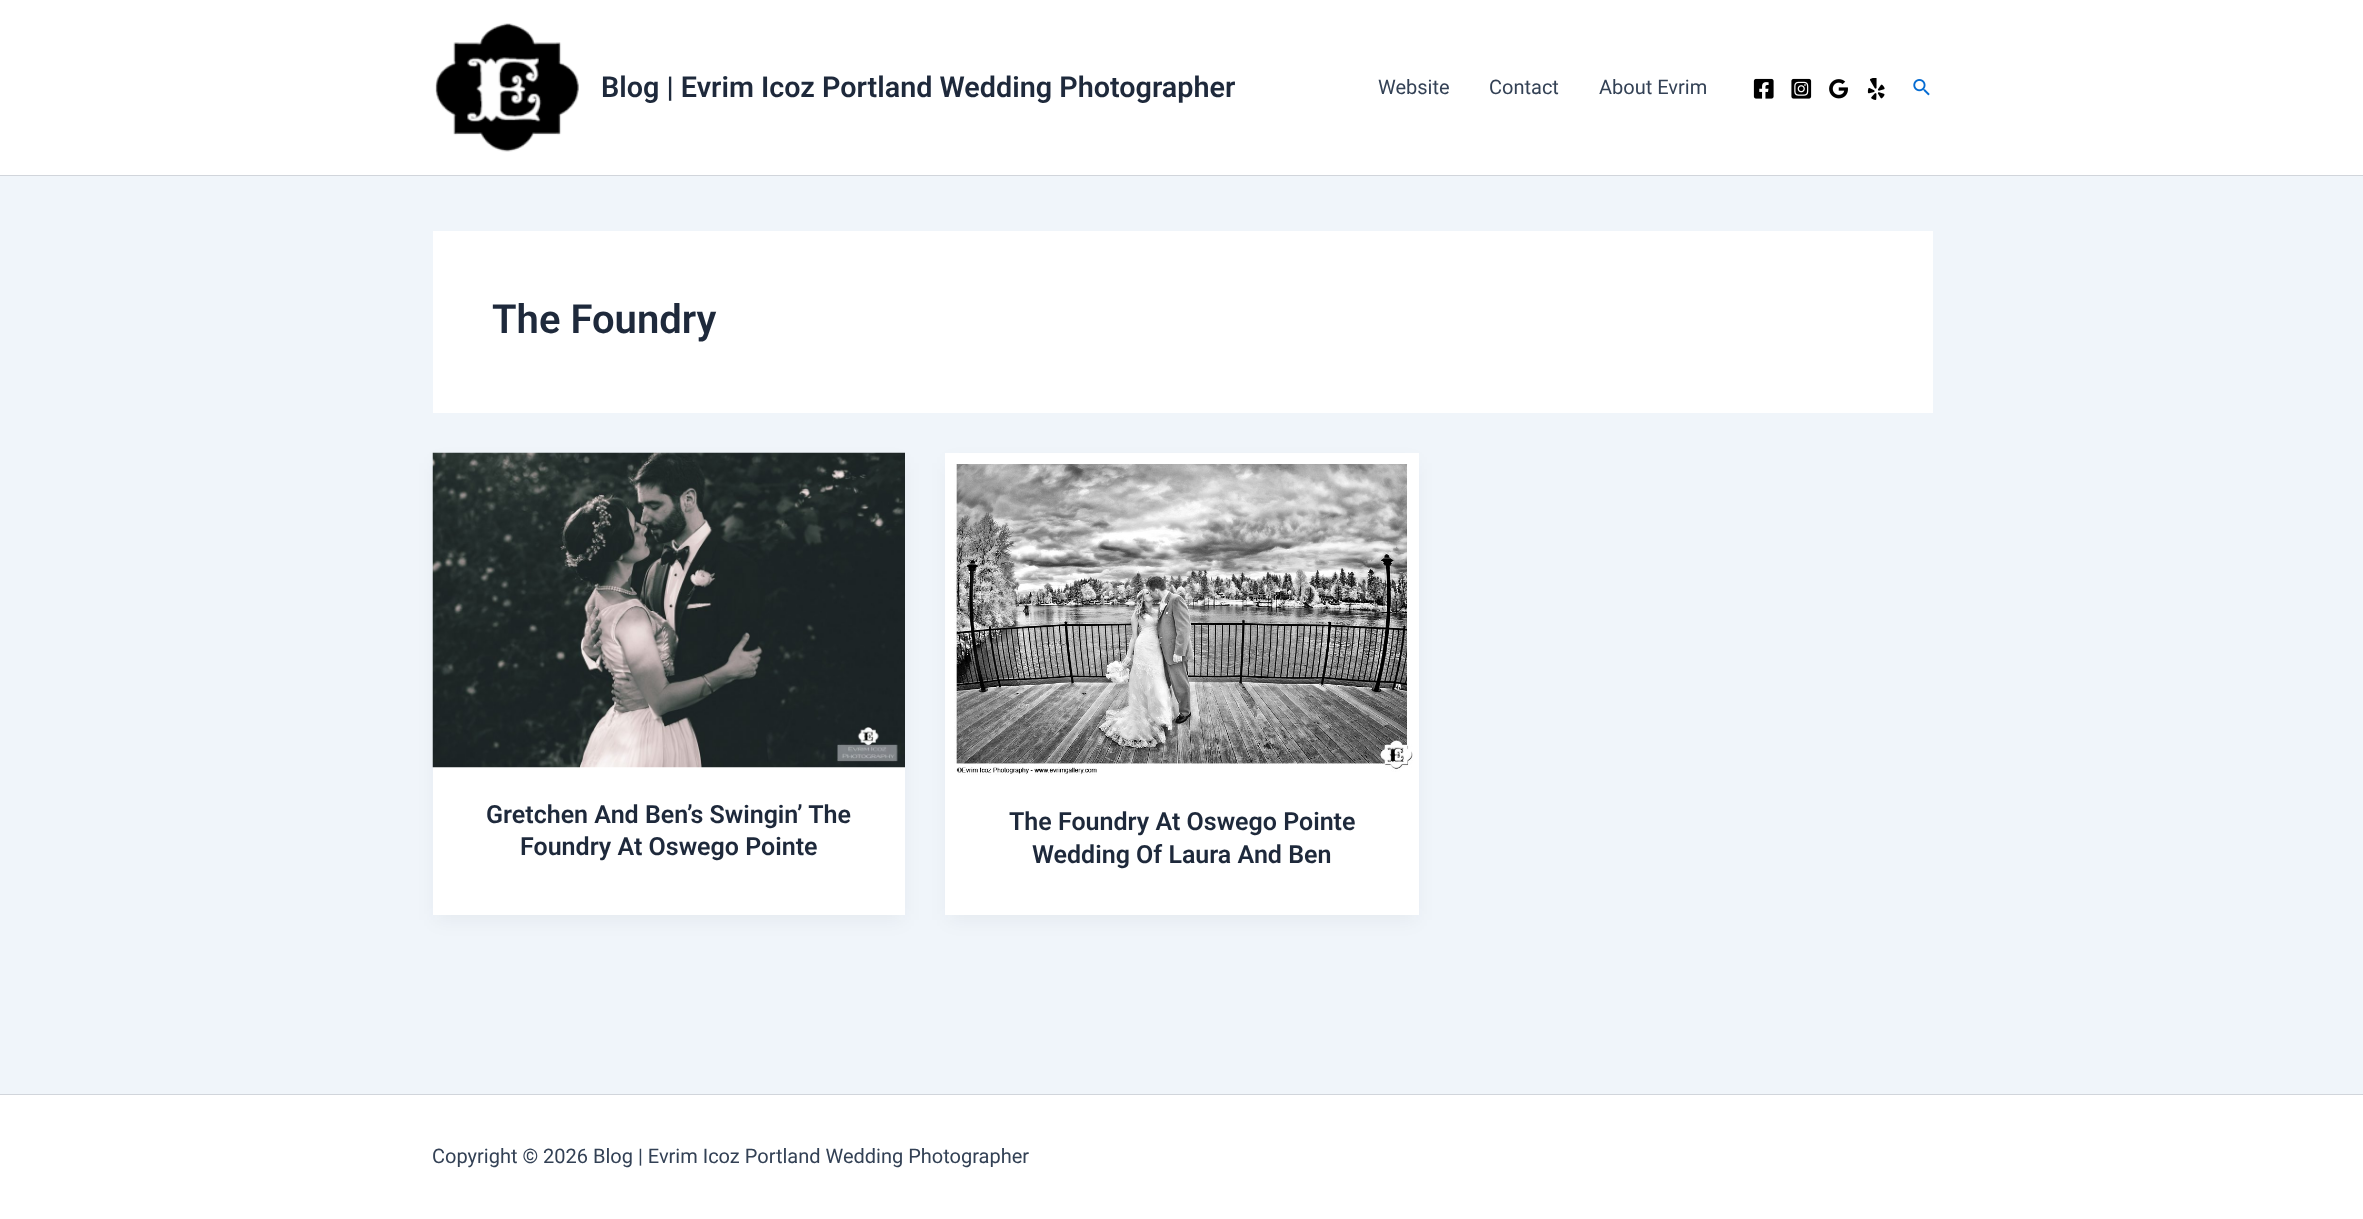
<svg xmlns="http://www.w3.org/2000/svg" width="2363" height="1219">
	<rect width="100%" height="100%" fill="#F0F5FA" />
	<rect x="0" y="0" width="2363" height="175" fill="#FFFFFF" />
	<rect x="0" y="175" width="2363" height="1" fill="#D1D5DB" />
	<image x="435" y="23" width="144" height="129" href="assets/img1.png" />
	<text x="601" y="97" font-family="Roboto" font-size="28.75" font-weight="600" fill="#1E293B">Blog | Evrim Icoz Portland Wedding Photographer</text>
	<g font-family="Roboto" font-size="20" fill="#334155">
		<text x="1378" y="94">Website</text>
		<text x="1489" y="94">Contact</text>
		<text x="1599" y="94">About Evrim</text>
	</g>
	<image x="1753" y="78" width="21" height="21" href="assets/img2.png" />
	<image x="1791" y="78" width="21" height="21" href="assets/img3.png" />
	<image x="1829" y="79" width="19" height="20" href="assets/img4.png" />
	<image x="1867" y="78" width="18" height="22" href="assets/img5.png" />
	<image x="1913" y="79" width="17" height="17" href="assets/img6.png" />
	<rect x="433" y="231" width="1500" height="182" fill="#FFFFFF" />
	<text x="492" y="333" font-family="Roboto" font-size="40" font-weight="600" fill="#1E293B">The Foundry</text>
	<rect x="435" y="463" width="468" height="457" fill="#101828" fill-opacity="0.05" filter="blur(9.5px)" />
	<rect x="433" y="767" width="472" height="148" fill="#FFFFFF" />
	<image x="432" y="452" width="473" height="316" href="assets/img7.png" />
	<g font-family="Roboto" font-size="25" font-weight="600" fill="#1E293B">
		<text x="486" y="823">Gretchen And Ben’s Swingin’ The</text>
		<text x="520" y="855">Foundry At Oswego Pointe</text>
	</g>
	<rect x="948" y="463" width="468" height="457" fill="#101828" fill-opacity="0.05" filter="blur(9.5px)" />
	<rect x="945" y="453" width="474" height="462" fill="#FFFFFF" />
	<image x="954" y="464" width="459" height="311" href="assets/img8.png" />
	<g font-family="Roboto" font-size="25" font-weight="600" fill="#1E293B">
		<text x="1009" y="830">The Foundry At Oswego Pointe</text>
		<text x="1032" y="863">Wedding Of Laura And Ben</text>
	</g>
	<rect x="0" y="1095" width="2363" height="124" fill="#FFFFFF" />
	<rect x="0" y="1094" width="2363" height="1" fill="#D1D5DB" />
	<text x="432" y="1163" font-family="Roboto" font-size="20" fill="#334155">Copyright © 2026 Blog | Evrim Icoz Portland Wedding Photographer</text>
</svg>
